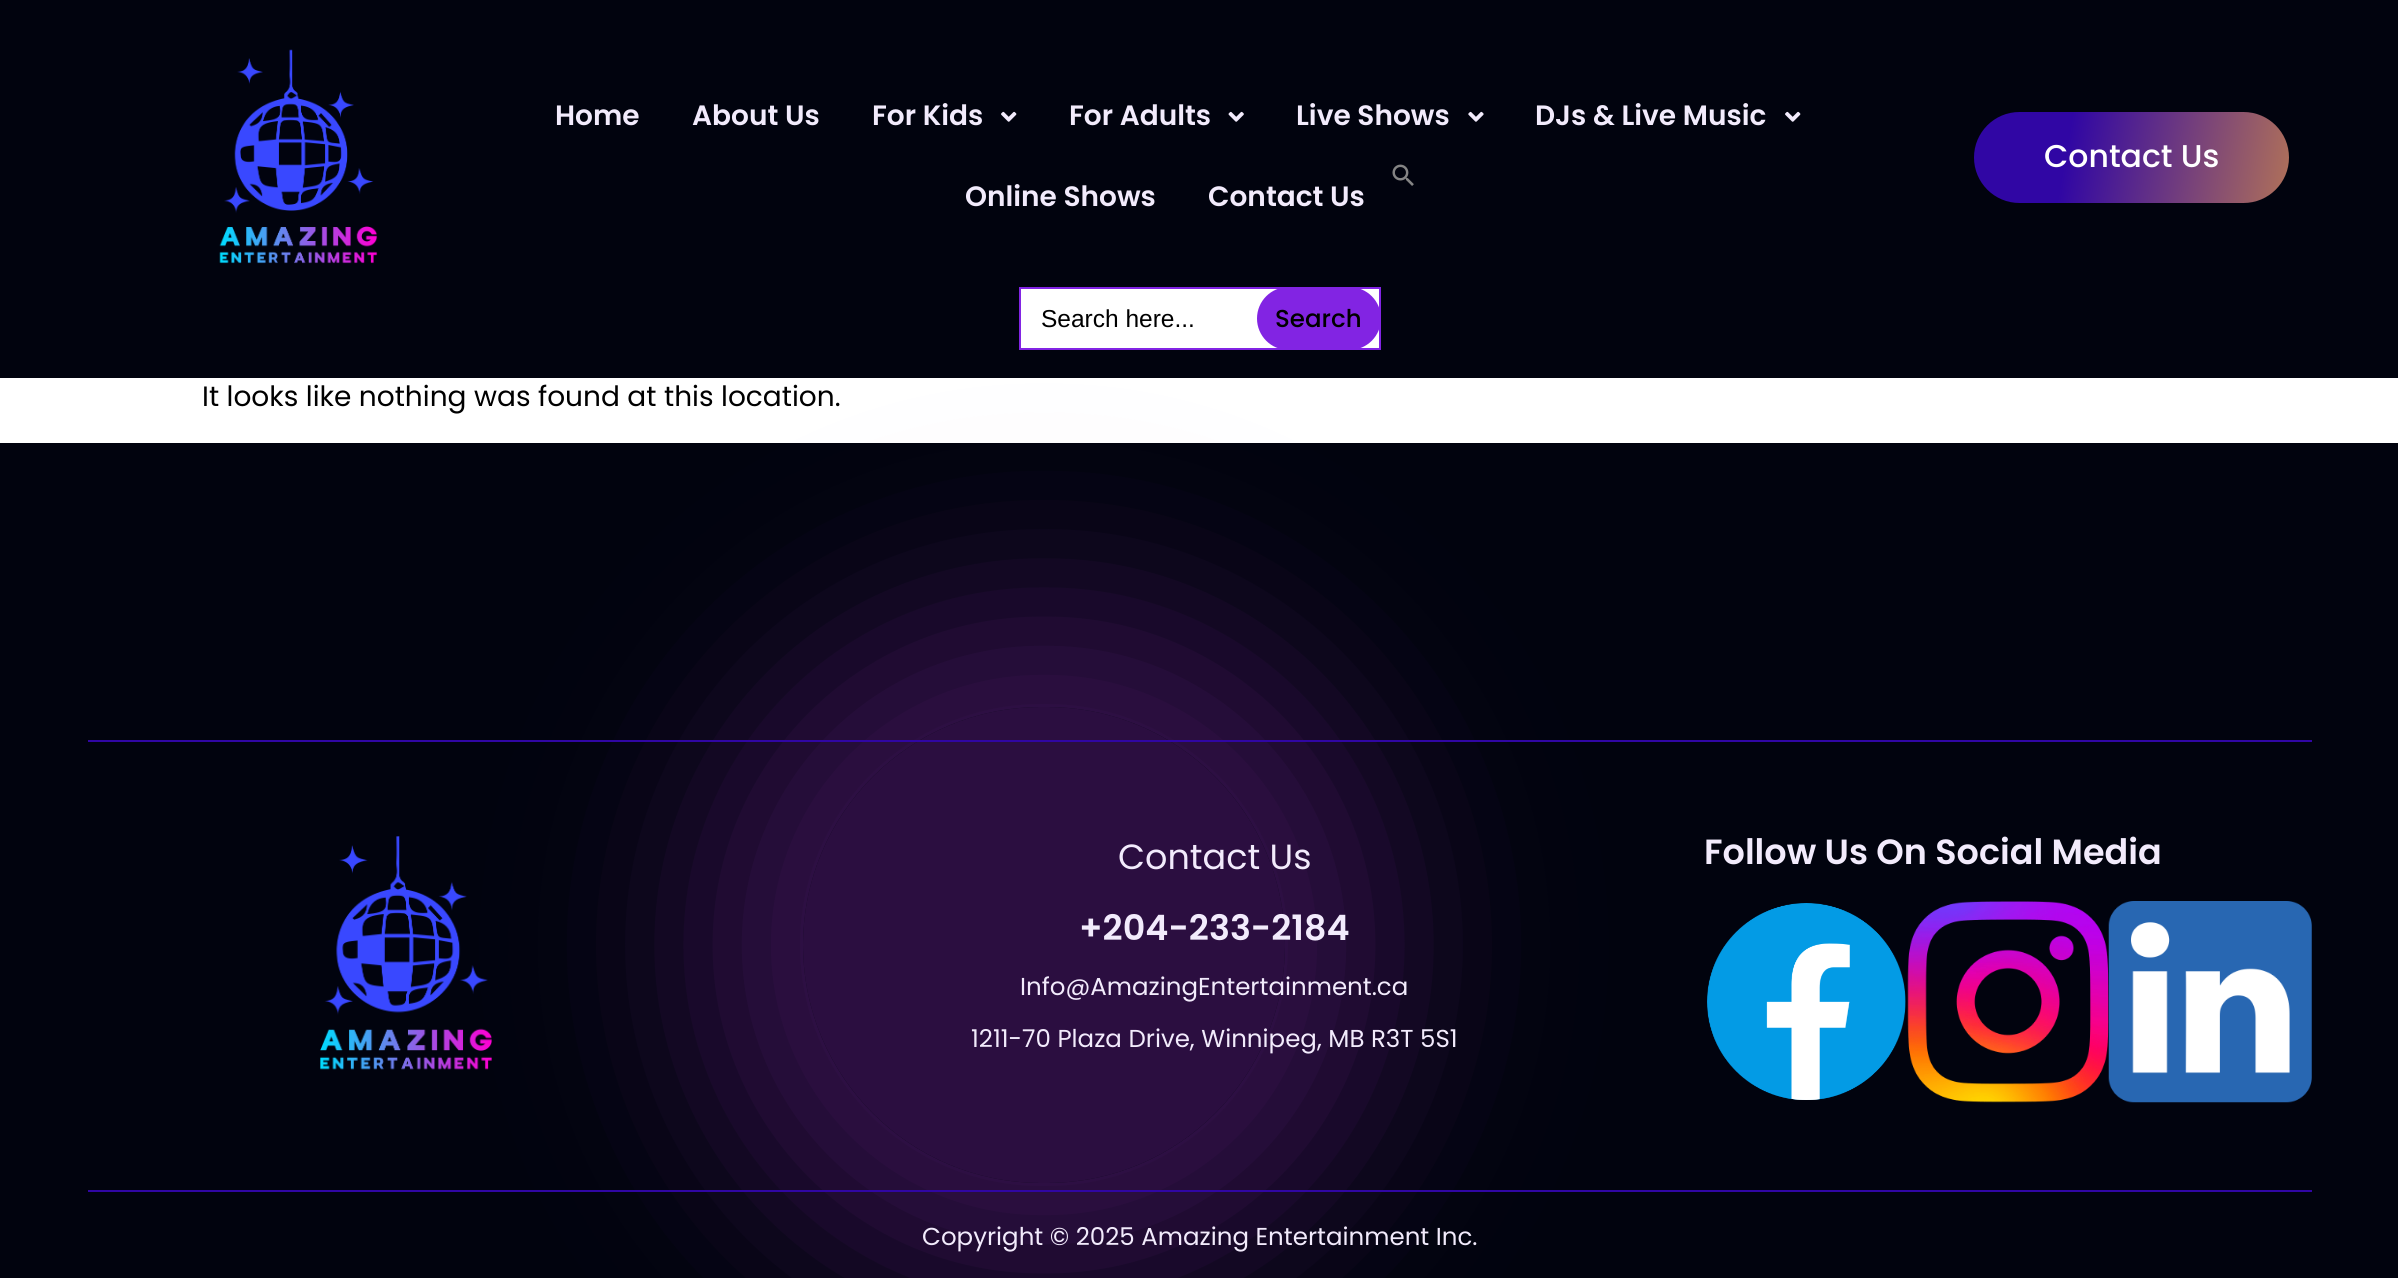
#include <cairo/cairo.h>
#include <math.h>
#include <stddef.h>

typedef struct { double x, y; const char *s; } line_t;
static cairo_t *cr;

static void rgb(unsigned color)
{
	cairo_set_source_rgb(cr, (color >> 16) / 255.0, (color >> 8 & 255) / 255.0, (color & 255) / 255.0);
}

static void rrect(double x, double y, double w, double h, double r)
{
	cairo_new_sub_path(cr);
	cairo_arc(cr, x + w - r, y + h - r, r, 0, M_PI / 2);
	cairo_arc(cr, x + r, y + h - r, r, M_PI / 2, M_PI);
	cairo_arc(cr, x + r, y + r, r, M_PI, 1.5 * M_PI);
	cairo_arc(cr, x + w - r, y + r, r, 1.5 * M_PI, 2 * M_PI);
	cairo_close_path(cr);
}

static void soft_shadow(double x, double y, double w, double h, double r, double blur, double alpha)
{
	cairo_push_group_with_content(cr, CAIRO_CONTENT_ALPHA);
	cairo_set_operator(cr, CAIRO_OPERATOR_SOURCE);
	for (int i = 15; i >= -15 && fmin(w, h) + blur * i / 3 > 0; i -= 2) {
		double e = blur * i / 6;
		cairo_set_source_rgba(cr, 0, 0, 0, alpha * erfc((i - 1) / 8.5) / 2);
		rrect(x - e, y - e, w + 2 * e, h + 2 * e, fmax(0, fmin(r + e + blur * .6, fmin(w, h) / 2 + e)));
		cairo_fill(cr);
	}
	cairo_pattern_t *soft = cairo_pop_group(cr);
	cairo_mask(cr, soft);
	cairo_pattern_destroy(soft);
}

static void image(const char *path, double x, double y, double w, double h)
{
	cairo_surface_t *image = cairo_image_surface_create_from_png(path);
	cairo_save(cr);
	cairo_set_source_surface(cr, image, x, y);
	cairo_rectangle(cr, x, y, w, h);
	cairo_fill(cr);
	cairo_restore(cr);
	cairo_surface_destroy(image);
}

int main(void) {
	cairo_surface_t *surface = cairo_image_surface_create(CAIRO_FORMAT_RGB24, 2398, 1278);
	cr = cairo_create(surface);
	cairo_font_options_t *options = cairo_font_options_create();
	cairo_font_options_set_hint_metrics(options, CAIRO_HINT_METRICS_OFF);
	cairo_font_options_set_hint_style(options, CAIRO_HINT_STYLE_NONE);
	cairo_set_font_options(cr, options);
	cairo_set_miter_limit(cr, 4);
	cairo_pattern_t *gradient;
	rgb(0xffffff);
	cairo_paint(cr);
	rgb(0x01030e);
	cairo_rectangle(cr, 0, 443, 2398, 835);
	cairo_fill(cr);
	cairo_save(cr);
	cairo_set_fill_rule(cr, CAIRO_FILL_RULE_EVEN_ODD);
	cairo_new_path(cr);
	cairo_move_to(cr, 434, 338);
	cairo_line_to(cr, 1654, 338);
	cairo_line_to(cr, 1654, 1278);
	cairo_line_to(cr, 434, 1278);
	cairo_close_path(cr);
	cairo_move_to(cr, 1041, 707);
	cairo_line_to(cr, 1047, 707);
	cairo_curve_to(cr, 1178.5, 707, 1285, 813.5, 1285, 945);
	cairo_curve_to(cr, 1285, 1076.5, 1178.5, 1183, 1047, 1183);
	cairo_line_to(cr, 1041, 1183);
	cairo_curve_to(cr, 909.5, 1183, 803, 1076.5, 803, 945);
	cairo_curve_to(cr, 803, 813.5, 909.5, 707, 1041, 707);
	cairo_close_path(cr);
	cairo_clip(cr);
	rgb(0x7a259e);
	soft_shadow(698, 602, 692, 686, 343, 87.5, 0.4);
	cairo_restore(cr);
	cairo_rectangle(cr, 0, 0, 2398, 378);
	cairo_fill(cr);
	image("img/1.png", 219, 49, 159, 215);
	image("img/2.png", 1001, 111, 16, 11);
	image("img/3.png", 1228, 111, 16, 11);
	image("img/4.png", 1468, 111, 16, 11);
	image("img/2.png", 1785, 111, 16, 11);
	image("img/5.png", 1392, 164, 22, 22);
	gradient = cairo_pattern_create_linear(1971, 129, 2292, 186);
	cairo_pattern_add_color_stop_rgba(gradient, 0.3, 0.188, 0.024, 0.643, 1);
	cairo_pattern_add_color_stop_rgba(gradient, 1, 0.69, 0.443, 0.349, 1);
	cairo_set_source(cr, gradient);
	cairo_pattern_destroy(gradient);
	rrect(1974, 112, 315, 91, 45.5);
	cairo_fill(cr);
	rgb(0xffffff);
	cairo_rectangle(cr, 1020, 288, 360, 61);
	cairo_fill_preserve(cr);
	rgb(0x8224e3);
	cairo_stroke(cr);
	rrect(1258, 288, 122, 61, 30.5);
	cairo_fill_preserve(cr);
	cairo_stroke(cr);
	cairo_set_source_rgba(cr, 0.478, 0.145, 0.62, 0.35);
	rrect(803, 707, 482, 476, 238);
	cairo_fill(cr);
	rgb(0x3006a4);
	cairo_rectangle(cr, 88, 740, 2224, 2);
	cairo_fill(cr);
	cairo_rectangle(cr, 88, 1190, 2224, 2);
	cairo_fill(cr);
	image("img/6.png", 320, 836, 172, 234);
	image("img/7.png", 1707, 903, 199, 197);
	image("img/8.png", 1907, 901, 202, 202);
	image("img/9.png", 2108, 901, 204, 202);
	cairo_select_font_face(cr, "Poppins SemiBold", CAIRO_FONT_SLANT_NORMAL, CAIRO_FONT_WEIGHT_NORMAL);
	cairo_set_font_size(cr, 28);
	rgb(0xf2ebfc);
	{
		static const line_t items[] = {
			{555, 125, "Home"},
			{692, 125, "About Us"},
			{872, 125, "For Kids"},
			{1069, 125, "For Adults"},
			{1296, 125, "Live Shows"},
			{1535, 125, "DJs & Live Music"},
			{965, 206, "Online Shows"},
			{1208, 206, "Contact Us"},
		};
		for (size_t i = 0; i < sizeof items / sizeof *items; i++) {
			cairo_move_to(cr, items[i].x, items[i].y);
			cairo_show_text(cr, items[i].s);
		}
	}
	cairo_select_font_face(cr, "Poppins Medium", CAIRO_FONT_SLANT_NORMAL, CAIRO_FONT_WEIGHT_NORMAL);
	cairo_set_font_size(cr, 31.5);
	rgb(0xffffff);
	cairo_move_to(cr, 2044, 167);
	cairo_show_text(cr, "Contact Us");
	cairo_select_font_face(cr, "Liberation Sans", CAIRO_FONT_SLANT_NORMAL, CAIRO_FONT_WEIGHT_NORMAL);
	cairo_set_font_size(cr, 24.5);
	rgb(0x000000);
	cairo_move_to(cr, 1041, 327);
	cairo_show_text(cr, "Search here...");
	cairo_select_font_face(cr, "Poppins Medium", CAIRO_FONT_SLANT_NORMAL, CAIRO_FONT_WEIGHT_NORMAL);
	cairo_move_to(cr, 1275, 327);
	cairo_show_text(cr, "Search");
	cairo_select_font_face(cr, "Poppins", CAIRO_FONT_SLANT_NORMAL, CAIRO_FONT_WEIGHT_NORMAL);
	cairo_set_font_size(cr, 28);
	cairo_move_to(cr, 202, 406);
	cairo_show_text(cr, "It looks like nothing was found at this location.");
	cairo_set_font_size(cr, 35);
	rgb(0xf2ebfc);
	cairo_move_to(cr, 1118, 869);
	cairo_show_text(cr, "Contact Us");
	cairo_select_font_face(cr, "Poppins SemiBold", CAIRO_FONT_SLANT_NORMAL, CAIRO_FONT_WEIGHT_NORMAL);
	cairo_move_to(cr, 1079, 940);
	cairo_show_text(cr, "+204-233-2184");
	cairo_select_font_face(cr, "Poppins", CAIRO_FONT_SLANT_NORMAL, CAIRO_FONT_WEIGHT_NORMAL);
	cairo_set_font_size(cr, 24.5);
	cairo_move_to(cr, 1020, 995);
	cairo_show_text(cr, "Info@AmazingEntertainment.ca");
	cairo_move_to(cr, 971, 1047);
	cairo_show_text(cr, "1211-70 Plaza Drive, Winnipeg, MB R3T 5S1");
	cairo_select_font_face(cr, "Poppins SemiBold", CAIRO_FONT_SLANT_NORMAL, CAIRO_FONT_WEIGHT_NORMAL);
	cairo_set_font_size(cr, 35);
	cairo_move_to(cr, 1704, 864);
	cairo_show_text(cr, "Follow Us On Social Media");
	cairo_select_font_face(cr, "Poppins", CAIRO_FONT_SLANT_NORMAL, CAIRO_FONT_WEIGHT_NORMAL);
	cairo_set_font_size(cr, 24.5);
	cairo_move_to(cr, 922, 1245);
	cairo_show_text(cr, "Copyright © 2025 Amazing Entertainment Inc.");
	cairo_surface_write_to_png(surface, "page.png");
	cairo_font_options_destroy(options);
	cairo_destroy(cr);
	cairo_surface_destroy(surface);
	return 0;
}
